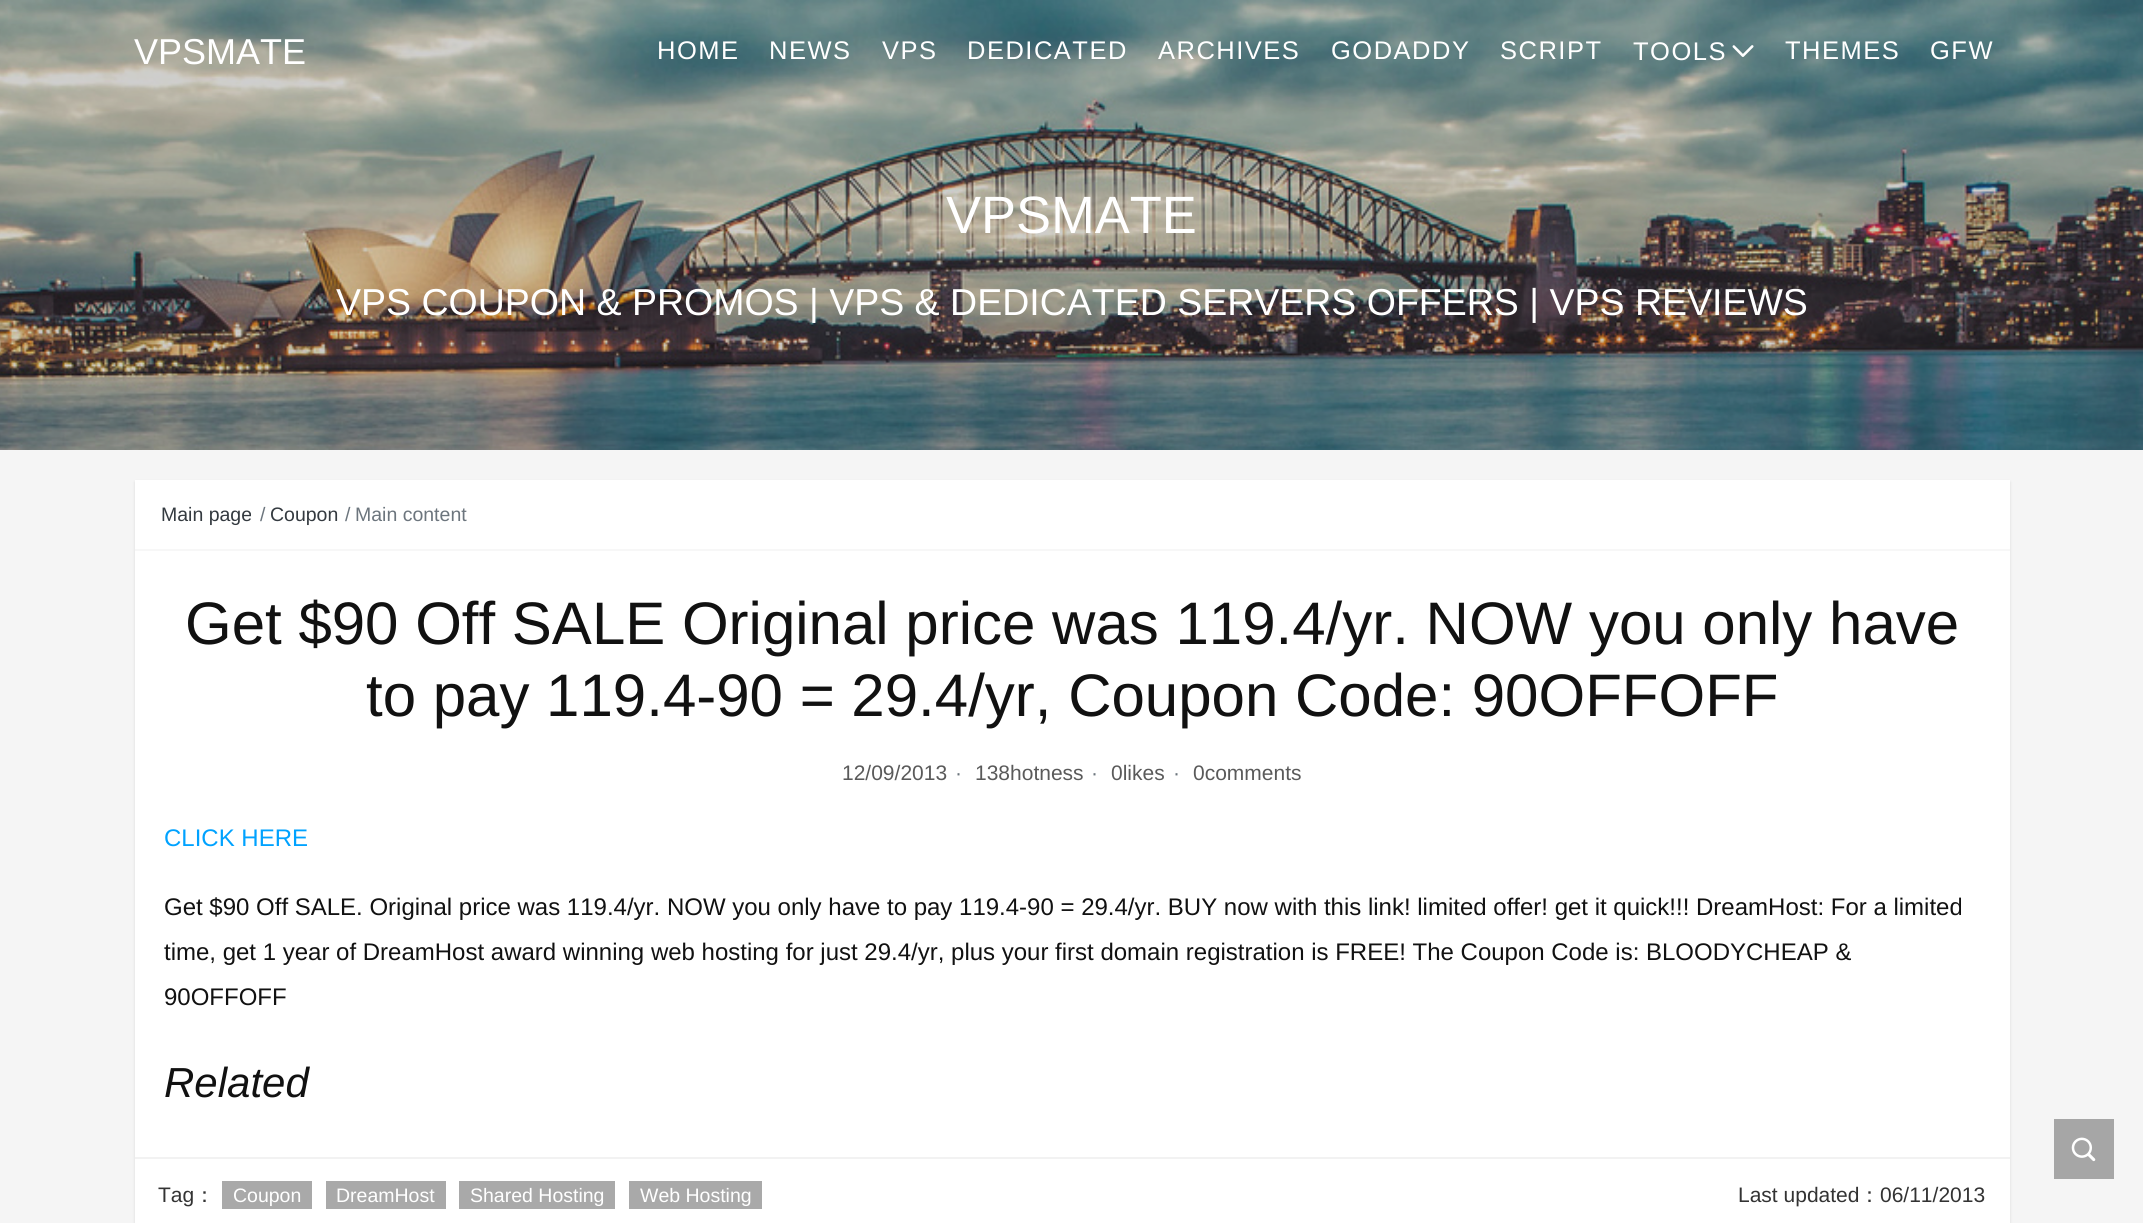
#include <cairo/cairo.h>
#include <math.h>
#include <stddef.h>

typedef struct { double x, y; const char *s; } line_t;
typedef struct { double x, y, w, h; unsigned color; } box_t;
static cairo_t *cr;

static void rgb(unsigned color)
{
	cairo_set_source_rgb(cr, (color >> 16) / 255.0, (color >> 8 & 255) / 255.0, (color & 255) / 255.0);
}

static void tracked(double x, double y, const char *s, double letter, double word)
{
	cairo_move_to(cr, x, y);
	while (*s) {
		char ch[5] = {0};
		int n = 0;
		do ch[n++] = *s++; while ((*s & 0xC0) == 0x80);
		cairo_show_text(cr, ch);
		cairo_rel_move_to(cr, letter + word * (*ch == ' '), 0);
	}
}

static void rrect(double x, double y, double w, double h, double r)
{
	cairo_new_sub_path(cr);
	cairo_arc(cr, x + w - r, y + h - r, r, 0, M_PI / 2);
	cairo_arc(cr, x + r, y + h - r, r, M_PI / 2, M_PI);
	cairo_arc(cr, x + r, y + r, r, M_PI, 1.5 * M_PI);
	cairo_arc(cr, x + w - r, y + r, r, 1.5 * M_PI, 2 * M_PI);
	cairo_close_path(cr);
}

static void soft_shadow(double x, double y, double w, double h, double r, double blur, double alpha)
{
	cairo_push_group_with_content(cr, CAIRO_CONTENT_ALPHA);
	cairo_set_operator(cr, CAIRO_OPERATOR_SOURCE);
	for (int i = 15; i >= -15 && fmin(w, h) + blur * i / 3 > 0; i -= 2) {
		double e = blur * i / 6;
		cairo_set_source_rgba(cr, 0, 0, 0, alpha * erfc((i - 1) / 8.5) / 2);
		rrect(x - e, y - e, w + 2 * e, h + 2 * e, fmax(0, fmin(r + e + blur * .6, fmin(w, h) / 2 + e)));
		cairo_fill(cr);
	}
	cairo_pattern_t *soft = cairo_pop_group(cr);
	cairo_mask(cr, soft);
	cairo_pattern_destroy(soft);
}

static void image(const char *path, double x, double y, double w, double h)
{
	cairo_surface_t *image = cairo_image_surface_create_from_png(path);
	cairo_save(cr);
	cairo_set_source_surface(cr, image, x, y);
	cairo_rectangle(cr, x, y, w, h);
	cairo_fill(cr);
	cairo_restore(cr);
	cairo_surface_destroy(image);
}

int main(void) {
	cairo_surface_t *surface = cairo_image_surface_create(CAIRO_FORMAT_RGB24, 2143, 1223);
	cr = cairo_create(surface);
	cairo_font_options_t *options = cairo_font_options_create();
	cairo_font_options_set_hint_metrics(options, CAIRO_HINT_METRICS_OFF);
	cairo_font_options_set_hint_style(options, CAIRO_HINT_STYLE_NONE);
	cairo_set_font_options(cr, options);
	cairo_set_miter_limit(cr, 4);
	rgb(0xf5f5f5);
	cairo_paint(cr);
	image("img/2.png", 0, 0, 2143, 450);
	image("img/1.png", 1732, 45, 22, 12);
	rgb(0x000000);
	soft_shadow(135, 482, 1875, 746, 0, 1.5, 0.1);
	{
		static const box_t items[] = {
			{135, 480, 1875, 743, 0xffffff},
			{135, 549, 1875, 2, 0xf7f7f7},
			{135, 1157, 1875, 2, 0xf2f2f2},
			{222, 1181, 90, 28, 0xa9a9a9},
			{326, 1181, 120, 28, 0xa9a9a9},
			{459, 1181, 156, 28, 0xa9a9a9},
			{629, 1181, 133, 28, 0xa9a9a9},
			{2054, 1119, 60, 60, 0xa6a6a6},
		};
		for (size_t i = 0; i < sizeof items / sizeof *items; i++) {
			rgb(items[i].color);
			cairo_rectangle(cr, items[i].x, items[i].y, items[i].w, items[i].h);
			cairo_fill(cr);
		}
	}
	image("img/3.png", 2071, 1137, 25, 25);
	cairo_select_font_face(cr, "Liberation Sans", CAIRO_FONT_SLANT_NORMAL, CAIRO_FONT_WEIGHT_NORMAL);
	cairo_set_font_size(cr, 36);
	rgb(0xffffff);
	cairo_move_to(cr, 134, 64);
	cairo_show_text(cr, "VPSMATE");
	cairo_set_font_size(cr, 25.5);
	{
		static const line_t items[] = {
			{657, 59, "HOME"},
			{769, 59, "NEWS"},
			{882, 59, "VPS"},
			{967, 59, "DEDICATED"},
			{1158, 59, "ARCHIVES"},
			{1331, 59, "GODADDY"},
			{1500, 59, "SCRIPT"},
			{1633, 60, "TOOLS"},
			{1785, 59, "THEMES"},
			{1930, 59, "GFW"},
		};
		for (size_t i = 0; i < sizeof items / sizeof *items; i++) {
			tracked(items[i].x, items[i].y, items[i].s, 1.5, 0);
		}
	}
	cairo_set_font_size(cr, 52.5);
	cairo_move_to(cr, 946, 233);
	cairo_show_text(cr, "VPSMATE");
	cairo_set_font_size(cr, 37.5);
	cairo_move_to(cr, 336, 315);
	cairo_show_text(cr, "VPS COUPON & PROMOS | VPS & DEDICATED SERVERS OFFERS | VPS REVIEWS");
	cairo_set_font_size(cr, 19.5);
	rgb(0x343a40);
	cairo_move_to(cr, 161, 521);
	cairo_show_text(cr, "Main page");
	rgb(0x6c757d);
	cairo_move_to(cr, 260, 521);
	cairo_show_text(cr, "/");
	rgb(0x343a40);
	cairo_move_to(cr, 270, 521);
	cairo_show_text(cr, "Coupon");
	rgb(0x6c757d);
	cairo_move_to(cr, 345, 521);
	cairo_show_text(cr, "/");
	cairo_move_to(cr, 355, 521);
	cairo_show_text(cr, "Main content");
	cairo_set_font_size(cr, 60);
	rgb(0x111111);
	cairo_move_to(cr, 185, 644);
	cairo_show_text(cr, "Get $90 Off SALE Original price was 119.4/yr. NOW you only have");
	cairo_move_to(cr, 366, 716);
	cairo_show_text(cr, "to pay 119.4-90 = 29.4/yr, Coupon Code: 90OFFOFF");
	cairo_set_font_size(cr, 21);
	rgb(0x5a5a5a);
	cairo_move_to(cr, 842, 780);
	cairo_show_text(cr, "12/09/2013");
	rgb(0x6c757d);
	cairo_move_to(cr, 955, 780);
	cairo_show_text(cr, "·");
	rgb(0x5a5a5a);
	cairo_move_to(cr, 975, 780);
	cairo_show_text(cr, "138hotness");
	rgb(0x6c757d);
	cairo_move_to(cr, 1091, 780);
	cairo_show_text(cr, "·");
	rgb(0x5a5a5a);
	cairo_move_to(cr, 1111, 780);
	cairo_show_text(cr, "0likes");
	rgb(0x6c757d);
	cairo_move_to(cr, 1173, 780);
	cairo_show_text(cr, "·");
	rgb(0x5a5a5a);
	cairo_move_to(cr, 1193, 780);
	cairo_show_text(cr, "0comments");
	cairo_set_font_size(cr, 24);
	rgb(0x00a2ff);
	cairo_move_to(cr, 164, 846);
	cairo_show_text(cr, "CLICK HERE");
	rgb(0x111111);
	{
		static const line_t items[] = {
			{164, 915, "Get $90 Off SALE. Original price was 119.4/yr. NOW you only have to pay 119.4-90 = 29.4/yr. BUY now with this link! limited offer! get it quick!!! DreamHost: For a limited"},
			{164, 960, "time, get 1 year of DreamHost award winning web hosting for just 29.4/yr, plus your first domain registration is FREE! The Coupon Code is: BLOODYCHEAP &"},
			{164, 1005, "90OFFOFF"},
		};
		for (size_t i = 0; i < sizeof items / sizeof *items; i++) {
			cairo_move_to(cr, items[i].x, items[i].y);
			cairo_show_text(cr, items[i].s);
		}
	}
	cairo_select_font_face(cr, "Liberation Sans", CAIRO_FONT_SLANT_ITALIC, CAIRO_FONT_WEIGHT_NORMAL);
	cairo_set_font_size(cr, 42);
	cairo_move_to(cr, 164, 1097);
	cairo_show_text(cr, "Related");
	cairo_select_font_face(cr, "Liberation Sans", CAIRO_FONT_SLANT_NORMAL, CAIRO_FONT_WEIGHT_NORMAL);
	cairo_set_font_size(cr, 21);
	rgb(0x333333);
	cairo_move_to(cr, 158, 1202);
	cairo_show_text(cr, "Tag");
	cairo_select_font_face(cr, "WenQuanYi Zen Hei Medium", CAIRO_FONT_SLANT_NORMAL, CAIRO_FONT_WEIGHT_NORMAL);
	cairo_move_to(cr, 194, 1202);
	cairo_show_text(cr, "：");
	cairo_select_font_face(cr, "Liberation Sans", CAIRO_FONT_SLANT_NORMAL, CAIRO_FONT_WEIGHT_NORMAL);
	cairo_set_font_size(cr, 19.5);
	rgb(0xffffff);
	{
		static const line_t items[] = {
			{233, 1202, "Coupon"},
			{336, 1202, "DreamHost"},
			{470, 1202, "Shared Hosting"},
			{640, 1202, "Web Hosting"},
		};
		for (size_t i = 0; i < sizeof items / sizeof *items; i++) {
			cairo_move_to(cr, items[i].x, items[i].y);
			cairo_show_text(cr, items[i].s);
		}
	}
	cairo_set_font_size(cr, 21);
	rgb(0x333333);
	cairo_move_to(cr, 1738, 1202);
	cairo_show_text(cr, "Last updated");
	cairo_select_font_face(cr, "WenQuanYi Zen Hei Medium", CAIRO_FONT_SLANT_NORMAL, CAIRO_FONT_WEIGHT_NORMAL);
	cairo_move_to(cr, 1859, 1202);
	cairo_show_text(cr, "：");
	cairo_select_font_face(cr, "Liberation Sans", CAIRO_FONT_SLANT_NORMAL, CAIRO_FONT_WEIGHT_NORMAL);
	cairo_move_to(cr, 1880, 1202);
	cairo_show_text(cr, "06/11/2013");
	cairo_surface_write_to_png(surface, "page.png");
	cairo_font_options_destroy(options);
	cairo_destroy(cr);
	cairo_surface_destroy(surface);
	return 0;
}
